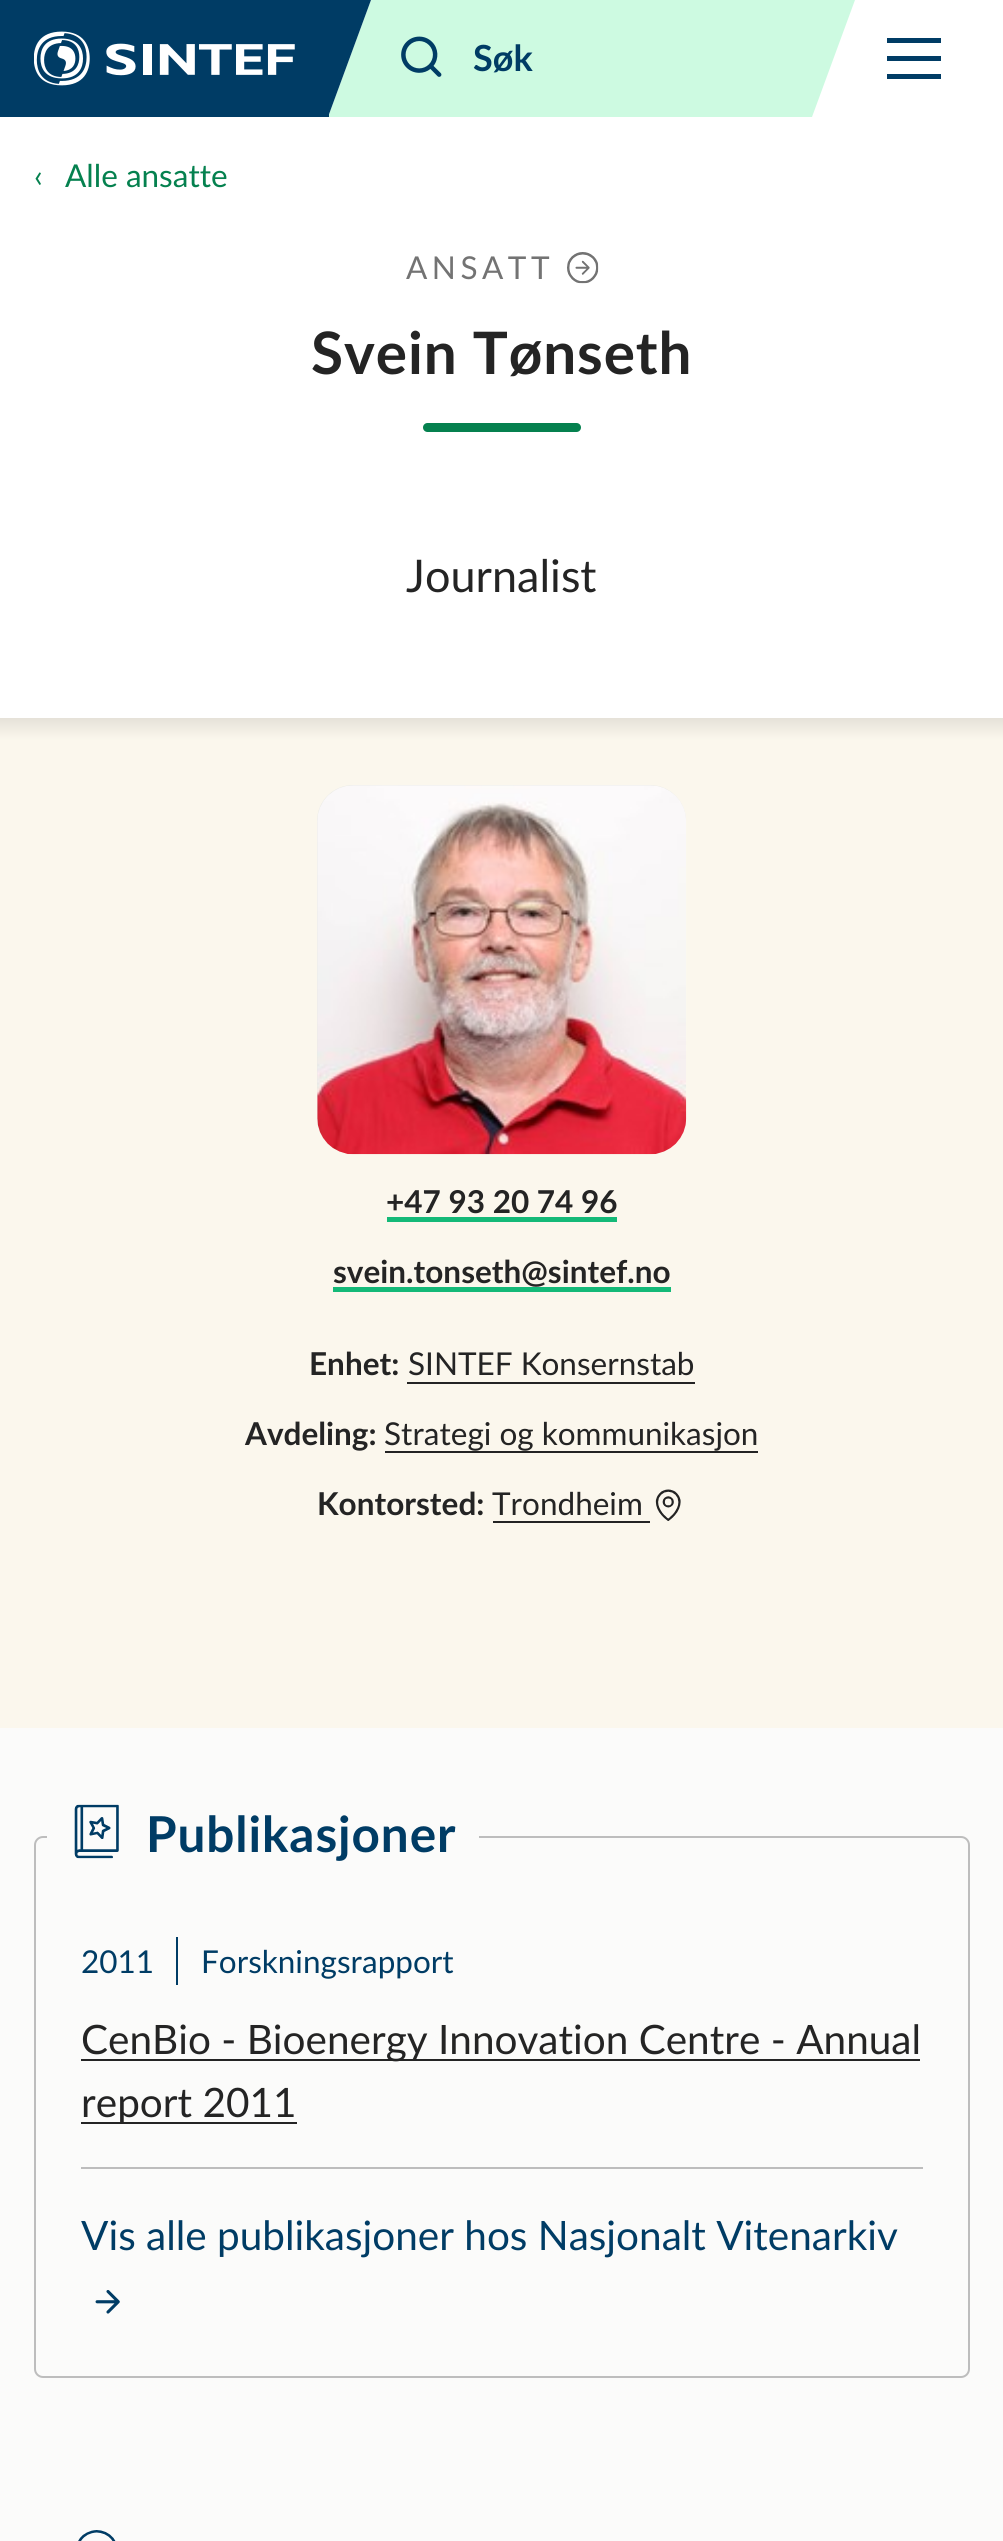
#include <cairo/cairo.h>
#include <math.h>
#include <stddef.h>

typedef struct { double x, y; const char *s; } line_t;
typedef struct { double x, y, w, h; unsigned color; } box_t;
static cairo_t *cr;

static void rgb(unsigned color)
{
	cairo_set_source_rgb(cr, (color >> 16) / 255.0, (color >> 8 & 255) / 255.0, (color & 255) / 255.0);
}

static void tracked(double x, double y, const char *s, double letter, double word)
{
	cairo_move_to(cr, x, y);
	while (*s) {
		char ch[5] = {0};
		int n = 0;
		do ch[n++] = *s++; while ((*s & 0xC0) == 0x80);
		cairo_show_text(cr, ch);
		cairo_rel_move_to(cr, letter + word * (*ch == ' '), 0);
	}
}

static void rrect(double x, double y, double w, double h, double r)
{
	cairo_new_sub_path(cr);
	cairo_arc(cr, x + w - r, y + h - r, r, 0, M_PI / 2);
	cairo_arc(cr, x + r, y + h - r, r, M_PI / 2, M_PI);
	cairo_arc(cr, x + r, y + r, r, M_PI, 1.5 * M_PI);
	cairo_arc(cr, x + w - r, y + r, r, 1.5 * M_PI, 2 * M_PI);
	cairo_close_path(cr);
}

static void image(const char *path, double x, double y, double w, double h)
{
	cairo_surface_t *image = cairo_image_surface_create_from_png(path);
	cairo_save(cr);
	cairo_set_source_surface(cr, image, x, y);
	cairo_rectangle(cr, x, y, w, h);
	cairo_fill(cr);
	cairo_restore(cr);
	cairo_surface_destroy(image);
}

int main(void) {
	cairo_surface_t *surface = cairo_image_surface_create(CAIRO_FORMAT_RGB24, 1003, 2541);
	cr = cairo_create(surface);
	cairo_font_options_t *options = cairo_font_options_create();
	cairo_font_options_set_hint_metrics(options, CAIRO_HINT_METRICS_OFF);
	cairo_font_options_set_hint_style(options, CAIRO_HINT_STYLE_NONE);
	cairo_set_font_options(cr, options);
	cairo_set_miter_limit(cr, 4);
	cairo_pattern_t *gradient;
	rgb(0xffffff);
	cairo_paint(cr);
	rgb(0xcdfae1);
	cairo_new_path(cr);
	cairo_move_to(cr, 371, 0);
	cairo_line_to(cr, 855, 0);
	cairo_line_to(cr, 812, 117);
	cairo_line_to(cr, 328, 117);
	cairo_close_path(cr);
	cairo_fill(cr);
	rgb(0x003c65);
	cairo_new_path(cr);
	cairo_move_to(cr, 43, 0);
	cairo_line_to(cr, 371, 0);
	cairo_line_to(cr, 328, 117);
	cairo_line_to(cr, 0, 117);
	cairo_close_path(cr);
	cairo_fill(cr);
	cairo_rectangle(cr, 0, 0, 329, 117);
	cairo_fill(cr);
	image("img/1.png", 34, 31, 261, 55);
	image("img/2.png", 401, 36, 41, 41);
	{
		static const box_t items[] = {
			{887, 38, 54, 5, 0x003c65},
			{887, 56, 54, 5, 0x003c65},
			{887, 74, 54, 5, 0x003c65},
		};
		for (size_t i = 0; i < sizeof items / sizeof *items; i++) {
			rgb(items[i].color);
			cairo_rectangle(cr, items[i].x, items[i].y, items[i].w, items[i].h);
			cairo_fill(cr);
		}
	}
	image("img/3.png", 567, 252, 32, 32);
	rgb(0x05814f);
	rrect(423, 423, 158, 9, 4.5);
	cairo_fill(cr);
	gradient = cairo_pattern_create_linear(502, 718, 502, 740);
	cairo_pattern_add_color_stop_rgba(gradient, 0, 0.902, 0.886, 0.851, 1);
	cairo_pattern_add_color_stop_rgba(gradient, 1, 0.984, 0.969, 0.929, 1);
	cairo_set_source(cr, gradient);
	cairo_pattern_destroy(gradient);
	cairo_rectangle(cr, 0, 718, 1003, 22);
	cairo_fill(cr);
	rgb(0xfbf7ed);
	cairo_rectangle(cr, 0, 740, 1003, 988);
	cairo_fill(cr);
	rgb(0xebebe6);
	rrect(317, 785, 369, 369, 36);
	cairo_fill(cr);
	image("img/4.png", 317, 785, 370, 370);
	{
		static const box_t items[] = {
			{387, 1217, 230, 5, 0x14b978},
			{333, 1287, 338, 5, 0x14b978},
			{407, 1382, 288, 2, 0x242424},
			{385, 1451, 373, 2, 0x242424},
			{493, 1521, 157, 2, 0x242424},
		};
		for (size_t i = 0; i < sizeof items / sizeof *items; i++) {
			rgb(items[i].color);
			cairo_rectangle(cr, items[i].x, items[i].y, items[i].w, items[i].h);
			cairo_fill(cr);
		}
	}
	image("img/5.png", 655, 1489, 26, 32);
	rgb(0xfbfbfa);
	cairo_rectangle(cr, 0, 1728, 1003, 813);
	cairo_fill(cr);
	rrect(35, 1837, 934, 540, 8);
	rgb(0xbdbdbd);
	cairo_stroke(cr);
	rgb(0xfbfbfa);
	cairo_rectangle(cr, 47, 1836, 432, 2);
	cairo_fill(cr);
	image("img/6.png", 74, 1804, 45, 55);
	{
		static const box_t items[] = {
			{81, 2167, 842, 2, 0xbdbdbd},
			{176, 1937, 2, 48, 0x003c65},
			{81, 2059, 839, 2, 0x242424},
			{81, 2122, 216, 2, 0x242424},
		};
		for (size_t i = 0; i < sizeof items / sizeof *items; i++) {
			rgb(items[i].color);
			cairo_rectangle(cr, items[i].x, items[i].y, items[i].w, items[i].h);
			cairo_fill(cr);
		}
	}
	image("img/7.png", 95, 2290, 25, 24);
	image("img/8.png", 78, 2530, 38, 11);
	cairo_select_font_face(cr, "Lato", CAIRO_FONT_SLANT_NORMAL, CAIRO_FONT_WEIGHT_BOLD);
	cairo_set_font_size(cr, 36);
	rgb(0x003c65);
	cairo_move_to(cr, 473, 71);
	cairo_show_text(cr, "Søk");
	cairo_select_font_face(cr, "Lato", CAIRO_FONT_SLANT_NORMAL, CAIRO_FONT_WEIGHT_NORMAL);
	cairo_set_font_size(cr, 31.5);
	rgb(0x05814f);
	cairo_move_to(cr, 34, 187);
	cairo_show_text(cr, "‹");
	cairo_move_to(cr, 65, 187);
	cairo_show_text(cr, "Alle ansatte");
	rgb(0x737373);
	tracked(406, 279, "ANSATT", 4.5, 0);
	cairo_select_font_face(cr, "Lato", CAIRO_FONT_SLANT_NORMAL, CAIRO_FONT_WEIGHT_BOLD);
	cairo_set_font_size(cr, 58.5);
	rgb(0x242424);
	tracked(311, 374, "Svein Tønseth", 0.9, 0);
	cairo_select_font_face(cr, "Lato", CAIRO_FONT_SLANT_NORMAL, CAIRO_FONT_WEIGHT_NORMAL);
	cairo_set_font_size(cr, 45);
	cairo_move_to(cr, 406, 592);
	cairo_show_text(cr, "Journalist");
	cairo_select_font_face(cr, "Lato", CAIRO_FONT_SLANT_NORMAL, CAIRO_FONT_WEIGHT_BOLD);
	cairo_set_font_size(cr, 31.5);
	{
		static const line_t items[] = {
			{386, 1213, "+47 93 20 74 96"},
			{333, 1283, "svein.tonseth@sintef.no"},
			{309, 1375, "Enhet:"},
		};
		for (size_t i = 0; i < sizeof items / sizeof *items; i++) {
			cairo_move_to(cr, items[i].x, items[i].y);
			cairo_show_text(cr, items[i].s);
		}
	}
	cairo_select_font_face(cr, "Lato", CAIRO_FONT_SLANT_NORMAL, CAIRO_FONT_WEIGHT_NORMAL);
	cairo_move_to(cr, 408, 1375);
	cairo_show_text(cr, "SINTEF Konsernstab");
	cairo_select_font_face(cr, "Lato", CAIRO_FONT_SLANT_NORMAL, CAIRO_FONT_WEIGHT_BOLD);
	cairo_move_to(cr, 245, 1445);
	cairo_show_text(cr, "Avdeling:");
	cairo_select_font_face(cr, "Lato", CAIRO_FONT_SLANT_NORMAL, CAIRO_FONT_WEIGHT_NORMAL);
	cairo_move_to(cr, 384, 1445);
	cairo_show_text(cr, "Strategi og kommunikasjon");
	cairo_select_font_face(cr, "Lato", CAIRO_FONT_SLANT_NORMAL, CAIRO_FONT_WEIGHT_BOLD);
	cairo_move_to(cr, 317, 1515);
	cairo_show_text(cr, "Kontorsted:");
	cairo_select_font_face(cr, "Lato", CAIRO_FONT_SLANT_NORMAL, CAIRO_FONT_WEIGHT_NORMAL);
	cairo_move_to(cr, 492, 1515);
	cairo_show_text(cr, "Trondheim");
	cairo_select_font_face(cr, "Lato", CAIRO_FONT_SLANT_NORMAL, CAIRO_FONT_WEIGHT_BOLD);
	cairo_set_font_size(cr, 49.5);
	rgb(0x003c65);
	tracked(146, 1852, "Publikasjoner", 0.9, 0);
	cairo_select_font_face(cr, "Lato", CAIRO_FONT_SLANT_NORMAL, CAIRO_FONT_WEIGHT_NORMAL);
	cairo_set_font_size(cr, 31.5);
	cairo_move_to(cr, 81, 1973);
	cairo_show_text(cr, "2011");
	cairo_move_to(cr, 201, 1973);
	cairo_show_text(cr, "Forskningsrapport");
	cairo_set_font_size(cr, 40.5);
	rgb(0x242424);
	cairo_move_to(cr, 81, 2054);
	cairo_show_text(cr, "CenBio - Bioenergy Innovation Centre - Annual");
	cairo_move_to(cr, 81, 2117);
	cairo_show_text(cr, "report 2011");
	rgb(0x003c65);
	cairo_move_to(cr, 81, 2250);
	cairo_show_text(cr, "Vis alle publikasjoner hos Nasjonalt Vitenarkiv");
	cairo_surface_write_to_png(surface, "page.png");
	cairo_font_options_destroy(options);
	cairo_destroy(cr);
	cairo_surface_destroy(surface);
	return 0;
}
